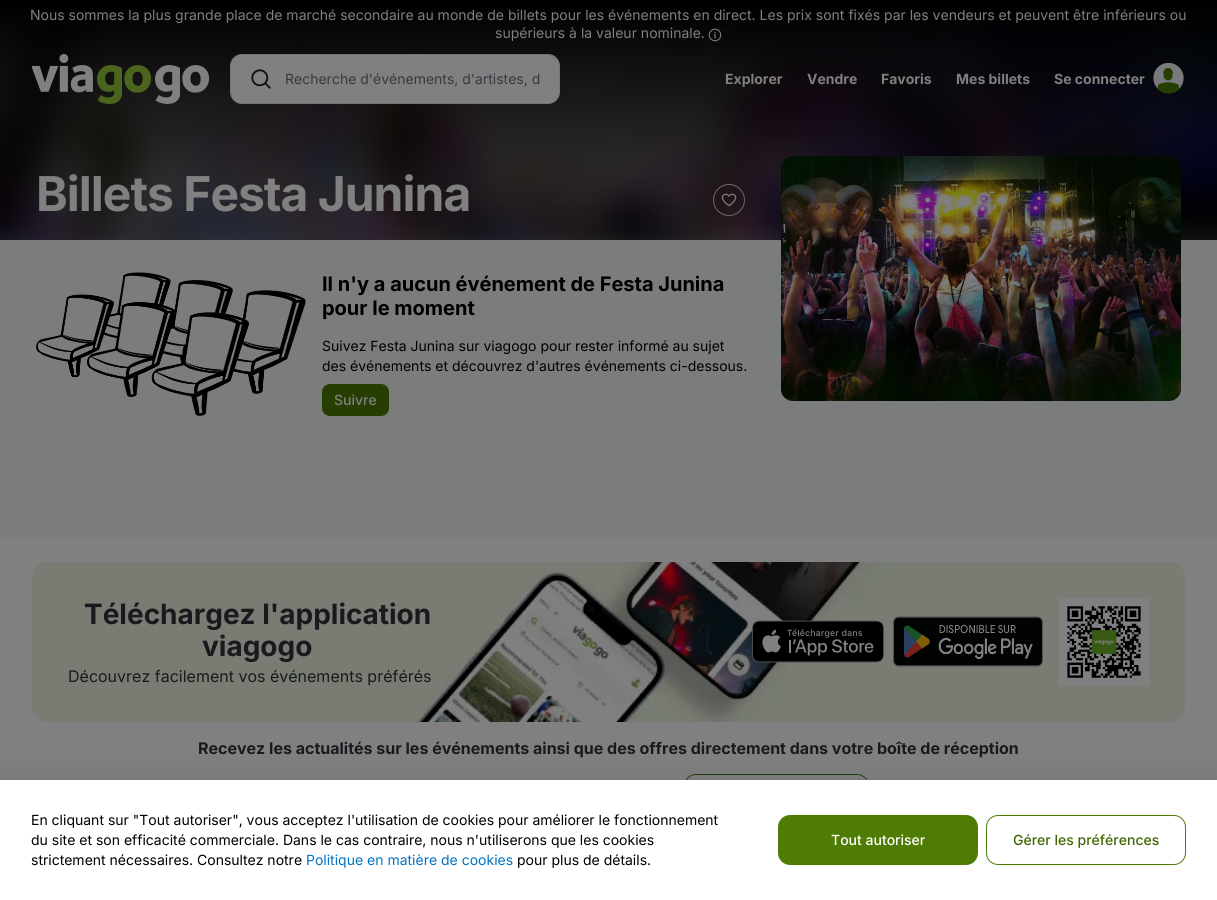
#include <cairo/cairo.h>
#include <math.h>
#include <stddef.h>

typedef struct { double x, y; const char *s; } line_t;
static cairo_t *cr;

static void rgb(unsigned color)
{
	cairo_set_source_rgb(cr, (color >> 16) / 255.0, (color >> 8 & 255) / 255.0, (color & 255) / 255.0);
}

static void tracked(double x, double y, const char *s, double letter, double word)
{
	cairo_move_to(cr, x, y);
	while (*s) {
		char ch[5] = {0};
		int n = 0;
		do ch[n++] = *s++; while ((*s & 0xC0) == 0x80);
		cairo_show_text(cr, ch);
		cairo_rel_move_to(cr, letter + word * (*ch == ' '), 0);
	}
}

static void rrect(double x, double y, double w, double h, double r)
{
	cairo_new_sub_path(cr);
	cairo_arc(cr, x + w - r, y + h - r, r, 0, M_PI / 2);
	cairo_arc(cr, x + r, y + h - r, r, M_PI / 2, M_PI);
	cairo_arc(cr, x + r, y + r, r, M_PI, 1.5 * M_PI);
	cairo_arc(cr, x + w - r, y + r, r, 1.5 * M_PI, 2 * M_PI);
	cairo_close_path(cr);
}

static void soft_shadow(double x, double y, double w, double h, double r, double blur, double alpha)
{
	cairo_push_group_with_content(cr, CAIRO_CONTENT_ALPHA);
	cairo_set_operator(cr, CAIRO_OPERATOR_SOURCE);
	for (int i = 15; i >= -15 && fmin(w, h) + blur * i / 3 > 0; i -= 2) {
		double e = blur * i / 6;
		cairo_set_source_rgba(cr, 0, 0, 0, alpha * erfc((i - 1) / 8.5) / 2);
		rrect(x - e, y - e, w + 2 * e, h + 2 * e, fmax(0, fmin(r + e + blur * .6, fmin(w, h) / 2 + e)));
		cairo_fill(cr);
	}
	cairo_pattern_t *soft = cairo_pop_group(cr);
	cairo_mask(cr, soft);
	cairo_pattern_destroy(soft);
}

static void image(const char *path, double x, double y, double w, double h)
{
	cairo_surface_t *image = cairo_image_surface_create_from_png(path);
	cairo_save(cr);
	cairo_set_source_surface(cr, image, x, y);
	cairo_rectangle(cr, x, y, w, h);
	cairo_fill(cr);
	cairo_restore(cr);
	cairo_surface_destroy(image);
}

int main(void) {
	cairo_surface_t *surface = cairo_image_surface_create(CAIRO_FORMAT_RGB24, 1217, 900);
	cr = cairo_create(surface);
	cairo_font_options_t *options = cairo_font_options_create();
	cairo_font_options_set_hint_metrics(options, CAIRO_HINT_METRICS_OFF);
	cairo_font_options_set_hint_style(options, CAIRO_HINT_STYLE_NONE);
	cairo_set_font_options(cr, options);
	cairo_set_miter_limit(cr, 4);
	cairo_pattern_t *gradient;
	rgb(0x808080);
	cairo_paint(cr);
	image("img/1.png", 0, 3, 1217, 237);
	gradient = cairo_pattern_create_linear(609, 240, 609, 0);
	cairo_pattern_add_color_stop_rgba(gradient, 0, 0, 0, 0, 0.5);
	cairo_pattern_add_color_stop_rgba(gradient, 1, 0, 0, 0, 1);
	cairo_set_source(cr, gradient);
	cairo_pattern_destroy(gradient);
	cairo_rectangle(cr, 0, 0, 1217, 240);
	cairo_fill(cr);
	image("img/2.png", 708, 28, 14, 14);
	image("img/3.png", 32, 54, 61, 39);
	image("img/4.png", 97, 65, 55, 39);
	image("img/5.png", 155, 65, 55, 39);
	rgb(0x808080);
	rrect(230.5, 54.5, 329, 49, 11.5);
	cairo_fill_preserve(cr);
	rgb(0x737576);
	cairo_set_line_width(cr, 1);
	cairo_stroke(cr);
	image("img/6.png", 251, 69, 20, 20);
	image("img/7.png", 1153, 63, 31, 31);
	cairo_arc(cr, 729, 200, 15.5, 0, 2 * M_PI);
	rgb(0x686a6d);
	cairo_stroke(cr);
	image("img/8.png", 721, 193, 16, 14);
	rgb(0x7b7c7c);
	cairo_rectangle(cr, 0, 240, 1217, 298);
	cairo_fill(cr);
	image("img/9.png", 36, 272, 270, 144);
	rgb(0x273e03);
	rrect(322, 384, 67, 32, 8);
	cairo_fill(cr);
	image("img/10.png", 781, 156, 400, 245);
	image("img/11.png", 32, 562, 1153, 160);
	image("img/12.png", 752, 620, 132, 43);
	image("img/13.png", 893, 616, 150, 51);
	rgb(0x808080);
	cairo_rectangle(cr, 1059, 598, 90, 88);
	cairo_fill(cr);
	image("img/14.png", 1067, 606, 74, 72);
	rrect(684.5, 774.5, 184, 49, 11.5);
	rgb(0x273e03);
	cairo_stroke(cr);
	rgb(0x2f343b);
	soft_shadow(0, 780, 1217, 120, 0, 16, 0.14);
	rgb(0xffffff);
	cairo_rectangle(cr, 0, 780, 1217, 120);
	cairo_fill(cr);
	rgb(0x4e7c05);
	rrect(778, 815, 200, 50, 12);
	cairo_fill(cr);
	rrect(986.5, 815.5, 199, 49, 11.5);
	cairo_stroke(cr);
	cairo_select_font_face(cr, "Inter", CAIRO_FONT_SLANT_NORMAL, CAIRO_FONT_WEIGHT_NORMAL);
	cairo_set_font_size(cr, 14);
	rgb(0x808080);
	cairo_move_to(cr, 30, 20);
	cairo_show_text(cr, "Nous sommes la plus grande place de marché secondaire au monde de billets pour les événements en direct. Les prix sont fixés par les vendeurs et peuvent être inférieurs ou");
	cairo_move_to(cr, 495, 38);
	cairo_show_text(cr, "supérieurs à la valeur nominale.");
	rgb(0x343a42);
	cairo_move_to(cr, 285, 84);
	cairo_show_text(cr, "Recherche d'événements, d'artistes, d");
	cairo_select_font_face(cr, "Inter", CAIRO_FONT_SLANT_NORMAL, CAIRO_FONT_WEIGHT_BOLD);
	rgb(0x808080);
	{
		static const line_t items[] = {
			{725, 84, "Explorer"},
			{807, 84, "Vendre"},
			{881, 84, "Favoris"},
			{956, 84, "Mes billets"},
			{1054, 84, "Se connecter"},
		};
		for (size_t i = 0; i < sizeof items / sizeof *items; i++) {
			cairo_move_to(cr, items[i].x, items[i].y);
			cairo_show_text(cr, items[i].s);
		}
	}
	cairo_set_font_size(cr, 48);
	tracked(36, 211, "Billets Festa Junina", -1, 0);
	cairo_set_font_size(cr, 20);
	rgb(0x000000);
	cairo_move_to(cr, 322, 291);
	cairo_show_text(cr, "Il n'y a aucun événement de Festa Junina");
	cairo_move_to(cr, 322, 315);
	cairo_show_text(cr, "pour le moment");
	cairo_select_font_face(cr, "Inter", CAIRO_FONT_SLANT_NORMAL, CAIRO_FONT_WEIGHT_NORMAL);
	cairo_set_font_size(cr, 14);
	cairo_move_to(cr, 322, 351);
	cairo_show_text(cr, "Suivez Festa Junina sur viagogo pour rester informé au sujet");
	cairo_move_to(cr, 322, 371);
	cairo_show_text(cr, "des événements et découvrez d'autres événements ci-dessous.");
	cairo_select_font_face(cr, "Inter Medium", CAIRO_FONT_SLANT_NORMAL, CAIRO_FONT_WEIGHT_NORMAL);
	rgb(0x808080);
	cairo_move_to(cr, 334, 405);
	cairo_show_text(cr, "Suivre");
	cairo_select_font_face(cr, "Inter", CAIRO_FONT_SLANT_NORMAL, CAIRO_FONT_WEIGHT_BOLD);
	cairo_set_font_size(cr, 28);
	rgb(0x181a1e);
	cairo_move_to(cr, 84, 624);
	cairo_show_text(cr, "Téléchargez l'application");
	cairo_move_to(cr, 202, 656);
	cairo_show_text(cr, "viagogo");
	cairo_select_font_face(cr, "Inter", CAIRO_FONT_SLANT_NORMAL, CAIRO_FONT_WEIGHT_NORMAL);
	cairo_set_font_size(cr, 16);
	cairo_move_to(cr, 68, 682);
	cairo_show_text(cr, "Découvrez facilement vos événements préférés");
	cairo_select_font_face(cr, "Inter", CAIRO_FONT_SLANT_NORMAL, CAIRO_FONT_WEIGHT_BOLD);
	cairo_move_to(cr, 198, 754);
	cairo_show_text(cr, "Recevez les actualités sur les événements ainsi que des offres directement dans votre boîte de réception");
	cairo_select_font_face(cr, "Inter", CAIRO_FONT_SLANT_NORMAL, CAIRO_FONT_WEIGHT_NORMAL);
	cairo_set_font_size(cr, 14);
	rgb(0x000000);
	{
		static const line_t items[] = {
			{31, 825, "En cliquant sur \"Tout autoriser\", vous acceptez l'utilisation de cookies pour améliorer le fonctionnement"},
			{31, 845, "du site et son efficacité commerciale. Dans le cas contraire, nous n'utiliserons que les cookies"},
			{31, 865, "strictement nécessaires. Consultez notre"},
		};
		for (size_t i = 0; i < sizeof items / sizeof *items; i++) {
			cairo_move_to(cr, items[i].x, items[i].y);
			cairo_show_text(cr, items[i].s);
		}
	}
	rgb(0x0075c4);
	cairo_move_to(cr, 306, 865);
	cairo_show_text(cr, "Politique en matière de cookies");
	rgb(0x000000);
	cairo_move_to(cr, 517, 865);
	cairo_show_text(cr, "pour plus de détails.");
	cairo_select_font_face(cr, "Inter Medium", CAIRO_FONT_SLANT_NORMAL, CAIRO_FONT_WEIGHT_NORMAL);
	rgb(0xffffff);
	cairo_move_to(cr, 831, 845);
	cairo_show_text(cr, "Tout autoriser");
	rgb(0x3f6600);
	cairo_move_to(cr, 1013, 845);
	cairo_show_text(cr, "Gérer les préférences");
	cairo_surface_write_to_png(surface, "page.png");
	cairo_font_options_destroy(options);
	cairo_destroy(cr);
	cairo_surface_destroy(surface);
	return 0;
}
